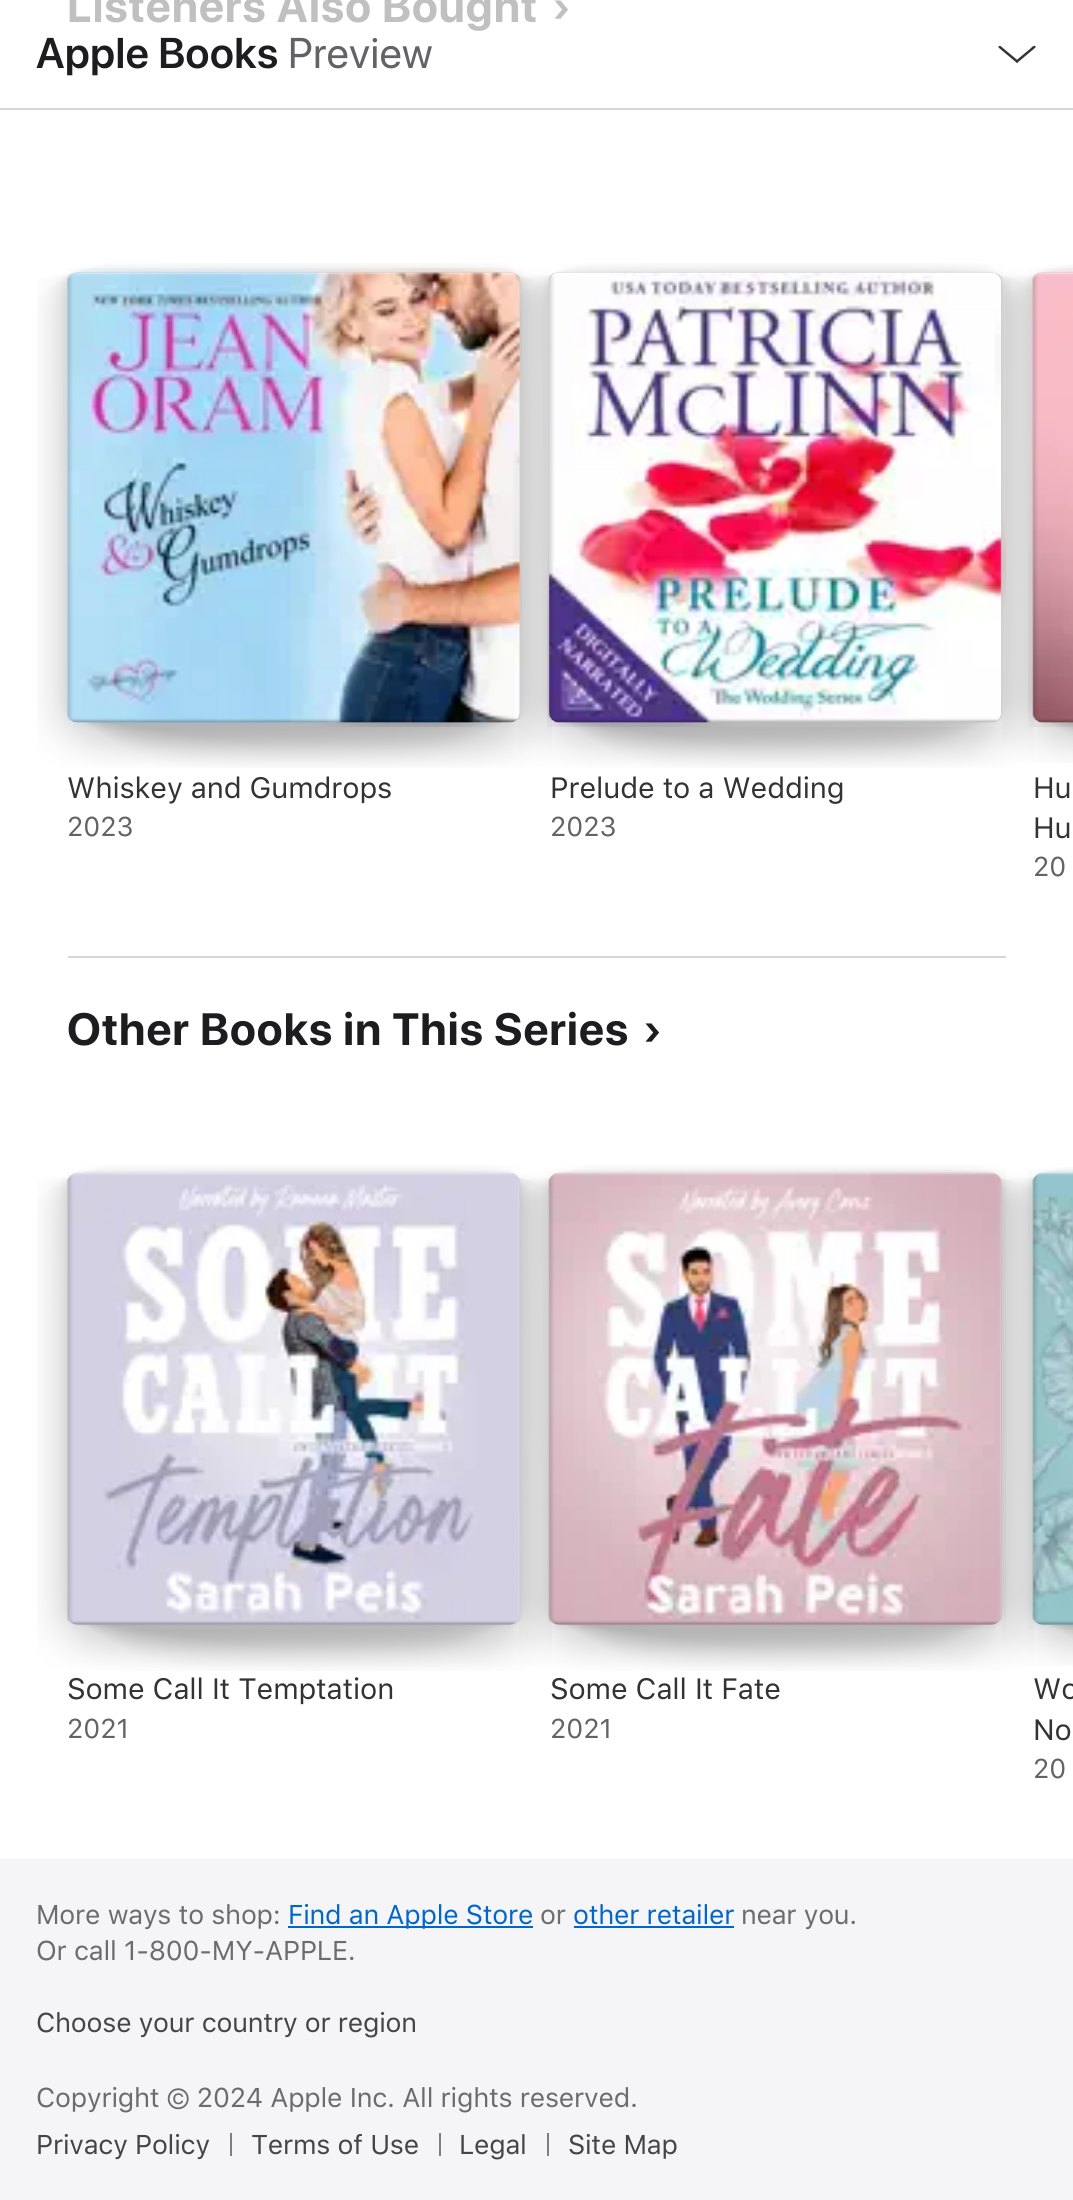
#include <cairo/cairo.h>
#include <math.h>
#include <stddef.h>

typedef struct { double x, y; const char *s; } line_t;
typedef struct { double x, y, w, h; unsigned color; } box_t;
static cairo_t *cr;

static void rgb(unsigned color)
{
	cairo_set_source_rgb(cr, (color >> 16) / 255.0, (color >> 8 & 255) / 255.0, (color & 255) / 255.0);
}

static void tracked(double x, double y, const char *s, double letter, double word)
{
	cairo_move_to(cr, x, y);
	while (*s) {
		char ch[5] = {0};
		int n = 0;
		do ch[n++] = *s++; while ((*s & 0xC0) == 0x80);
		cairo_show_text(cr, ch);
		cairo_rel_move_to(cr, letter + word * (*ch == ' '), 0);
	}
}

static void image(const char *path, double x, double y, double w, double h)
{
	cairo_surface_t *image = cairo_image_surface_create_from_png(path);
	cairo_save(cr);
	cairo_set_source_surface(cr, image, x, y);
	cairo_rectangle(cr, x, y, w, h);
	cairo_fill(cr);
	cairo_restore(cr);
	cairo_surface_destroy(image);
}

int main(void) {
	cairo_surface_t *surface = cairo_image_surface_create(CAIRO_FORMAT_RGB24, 1073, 2200);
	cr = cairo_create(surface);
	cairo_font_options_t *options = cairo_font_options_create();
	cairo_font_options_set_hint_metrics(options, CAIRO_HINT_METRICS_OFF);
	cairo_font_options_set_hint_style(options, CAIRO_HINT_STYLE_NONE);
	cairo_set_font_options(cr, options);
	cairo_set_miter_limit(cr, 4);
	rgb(0xf5f5f7);
	cairo_paint(cr);
	rgb(0xffffff);
	cairo_rectangle(cr, 0, 110, 1073, 1749);
	cairo_fill(cr);
	cairo_rectangle(cr, 0, 0, 1073, 108);
	cairo_fill(cr);
	image("img/1.png", 37, 263, 515, 505);
	image("img/2.png", 63, 268, 459, 459);
	image("img/3.png", 67, 272, 453, 451);
	image("img/4.png", 67, 272, 453, 451);
	image("img/5.png", 519, 263, 515, 505);
	image("img/6.png", 547, 272, 459, 455);
	image("img/7.png", 549, 272, 453, 451);
	image("img/8.png", 549, 273, 452, 450);
	image("img/9.png", 1002, 264, 71, 499);
	image("img/10.png", 1028, 268, 45, 459);
	image("img/11.png", 1032, 272, 41, 451);
	image("img/12.png", 1033, 272, 40, 451);
	rgb(0xd6d6d6);
	cairo_rectangle(cr, 68, 956, 938, 2);
	cairo_fill(cr);
	image("img/13.png", 37, 1165, 515, 506);
	image("img/14.png", 67, 1170, 445, 459);
	image("img/15.png", 67, 1172, 453, 453);
	image("img/16.png", 67, 1173, 453, 452);
	image("img/17.png", 519, 1165, 515, 506);
	image("img/18.png", 547, 1170, 459, 459);
	image("img/19.png", 549, 1172, 452, 453);
	image("img/20.png", 549, 1173, 452, 452);
	image("img/21.png", 1002, 1167, 71, 499);
	image("img/22.png", 1028, 1170, 45, 459);
	image("img/23.png", 1033, 1172, 40, 453);
	image("img/24.png", 1033, 1172, 40, 453);
	rgb(0x333333);
	cairo_new_path(cr);
	cairo_move_to(cr, 1000.5, 46);
	cairo_line_to(cr, 1018.5, 61);
	cairo_line_to(cr, 1017, 63);
	cairo_line_to(cr, 1002, 50.5);
	cairo_curve_to(cr, 1002, 50, 996.5, 47, 999, 46);
	cairo_close_path(cr);
	cairo_fill(cr);
	cairo_new_path(cr);
	cairo_move_to(cr, 1015.5, 61);
	cairo_line_to(cr, 1030.5, 48.5);
	cairo_curve_to(cr, 1030.5, 48.5, 1034.5, 44, 1035.5, 46.5);
	cairo_line_to(cr, 1035.5, 47.5);
	cairo_line_to(cr, 1017, 63);
	cairo_close_path(cr);
	cairo_fill(cr);
	{
		static const box_t items[] = {
			{0, 108, 1073, 2, 0xd6d6d6},
			{288, 1926, 245, 2, 0x0066cc},
			{574, 1926, 160, 2, 0x0066cc},
			{230, 2133, 2, 23, 0x7f7f80},
			{439, 2133, 2, 23, 0x7f7f80},
			{547, 2133, 2, 23, 0x7f7f80},
		};
		for (size_t i = 0; i < sizeof items / sizeof *items; i++) {
			rgb(items[i].color);
			cairo_rectangle(cr, items[i].x, items[i].y, items[i].w, items[i].h);
			cairo_fill(cr);
		}
	}
	cairo_select_font_face(cr, "SF Pro Display", CAIRO_FONT_SLANT_NORMAL, CAIRO_FONT_WEIGHT_BOLD);
	cairo_set_font_size(cr, 45);
	rgb(0xc0c0c0);
	tracked(67, 22, "Listeners Also Bought", 1.1, 0);
	tracked(552, 22, "›", 1.1, 0);
	cairo_select_font_face(cr, "SF Pro Text", CAIRO_FONT_SLANT_NORMAL, CAIRO_FONT_WEIGHT_NORMAL);
	cairo_set_font_size(cr, 29.25);
	rgb(0x333333);
	tracked(67, 798, "Whiskey and Gumdrops", -0.15, 0);
	cairo_set_font_size(cr, 27);
	rgb(0x636366);
	cairo_move_to(cr, 67, 836);
	cairo_show_text(cr, "2023");
	cairo_set_font_size(cr, 29.25);
	rgb(0x333333);
	tracked(550, 798, "Prelude to a Wedding", -0.15, 0);
	cairo_set_font_size(cr, 27);
	rgb(0x636366);
	cairo_move_to(cr, 550, 836);
	cairo_show_text(cr, "2023");
	cairo_set_font_size(cr, 29.25);
	rgb(0x333333);
	tracked(1033, 798, "Hu", -0.15, 0);
	tracked(1033, 838, "Hu", -0.15, 0);
	cairo_set_font_size(cr, 27);
	rgb(0x636366);
	cairo_move_to(cr, 1033, 876);
	cairo_show_text(cr, "20");
	cairo_select_font_face(cr, "SF Pro Display", CAIRO_FONT_SLANT_NORMAL, CAIRO_FONT_WEIGHT_BOLD);
	cairo_set_font_size(cr, 45);
	rgb(0x1d1d1f);
	tracked(67, 1045, "Other Books in This Series", 1.1, 0);
	tracked(643, 1045, "›", 1.1, 0);
	cairo_select_font_face(cr, "SF Pro Text", CAIRO_FONT_SLANT_NORMAL, CAIRO_FONT_WEIGHT_NORMAL);
	cairo_set_font_size(cr, 29.25);
	rgb(0x333333);
	tracked(67, 1699, "Some Call It Temptation", -0.15, 0);
	cairo_set_font_size(cr, 27);
	rgb(0x636366);
	cairo_move_to(cr, 67, 1738);
	cairo_show_text(cr, "2021");
	cairo_set_font_size(cr, 29.25);
	rgb(0x333333);
	tracked(550, 1699, "Some Call It Fate", -0.15, 0);
	cairo_set_font_size(cr, 27);
	rgb(0x636366);
	cairo_move_to(cr, 550, 1738);
	cairo_show_text(cr, "2021");
	cairo_set_font_size(cr, 29.25);
	rgb(0x333333);
	tracked(1033, 1699, "Wo", -0.15, 0);
	tracked(1033, 1740, "No", -0.15, 0);
	cairo_set_font_size(cr, 27);
	rgb(0x636366);
	cairo_move_to(cr, 1033, 1778);
	cairo_show_text(cr, "20");
	cairo_select_font_face(cr, "SF Pro Display SemiBold", CAIRO_FONT_SLANT_NORMAL, CAIRO_FONT_WEIGHT_NORMAL);
	cairo_set_font_size(cr, 42.75);
	rgb(0x1d1d1f);
	tracked(36, 68, "Apple Books", 0.5, 0);
	cairo_select_font_face(cr, "SF Pro Display", CAIRO_FONT_SLANT_NORMAL, CAIRO_FONT_WEIGHT_NORMAL);
	rgb(0x636366);
	tracked(288, 68, "Preview", 0.5, 0);
	cairo_select_font_face(cr, "SF Pro Text", CAIRO_FONT_SLANT_NORMAL, CAIRO_FONT_WEIGHT_NORMAL);
	cairo_set_font_size(cr, 27);
	rgb(0x6c6c6d);
	tracked(36, 1924, "More ways to shop:", -0.25, 0);
	rgb(0x0066cc);
	tracked(288, 1924, "Find an Apple Store", -0.25, 0);
	rgb(0x6c6c6d);
	tracked(540, 1924, "or", -0.25, 0);
	rgb(0x0066cc);
	tracked(573, 1924, "other retailer", -0.25, 0);
	rgb(0x6c6c6d);
	tracked(741, 1924, "near you.", -0.25, 0);
	tracked(36, 1960, "Or call 1-800-MY-APPLE.", -0.25, 0);
	rgb(0x454545);
	tracked(36, 2032, "Choose your country or region", -0.25, 0);
	rgb(0x6c6c6d);
	tracked(36, 2107, "Copyright © 2024 Apple Inc. All rights reserved.", -0.25, 0);
	rgb(0x454545);
	{
		static const line_t items[] = {
			{36, 2154, "Privacy Policy"},
			{251, 2154, "Terms of Use"},
			{459, 2154, "Legal"},
			{568, 2154, "Site Map"},
		};
		for (size_t i = 0; i < sizeof items / sizeof *items; i++) {
			tracked(items[i].x, items[i].y, items[i].s, -0.25, 0);
		}
	}
	cairo_surface_write_to_png(surface, "page.png");
	cairo_font_options_destroy(options);
	cairo_destroy(cr);
	cairo_surface_destroy(surface);
	return 0;
}
